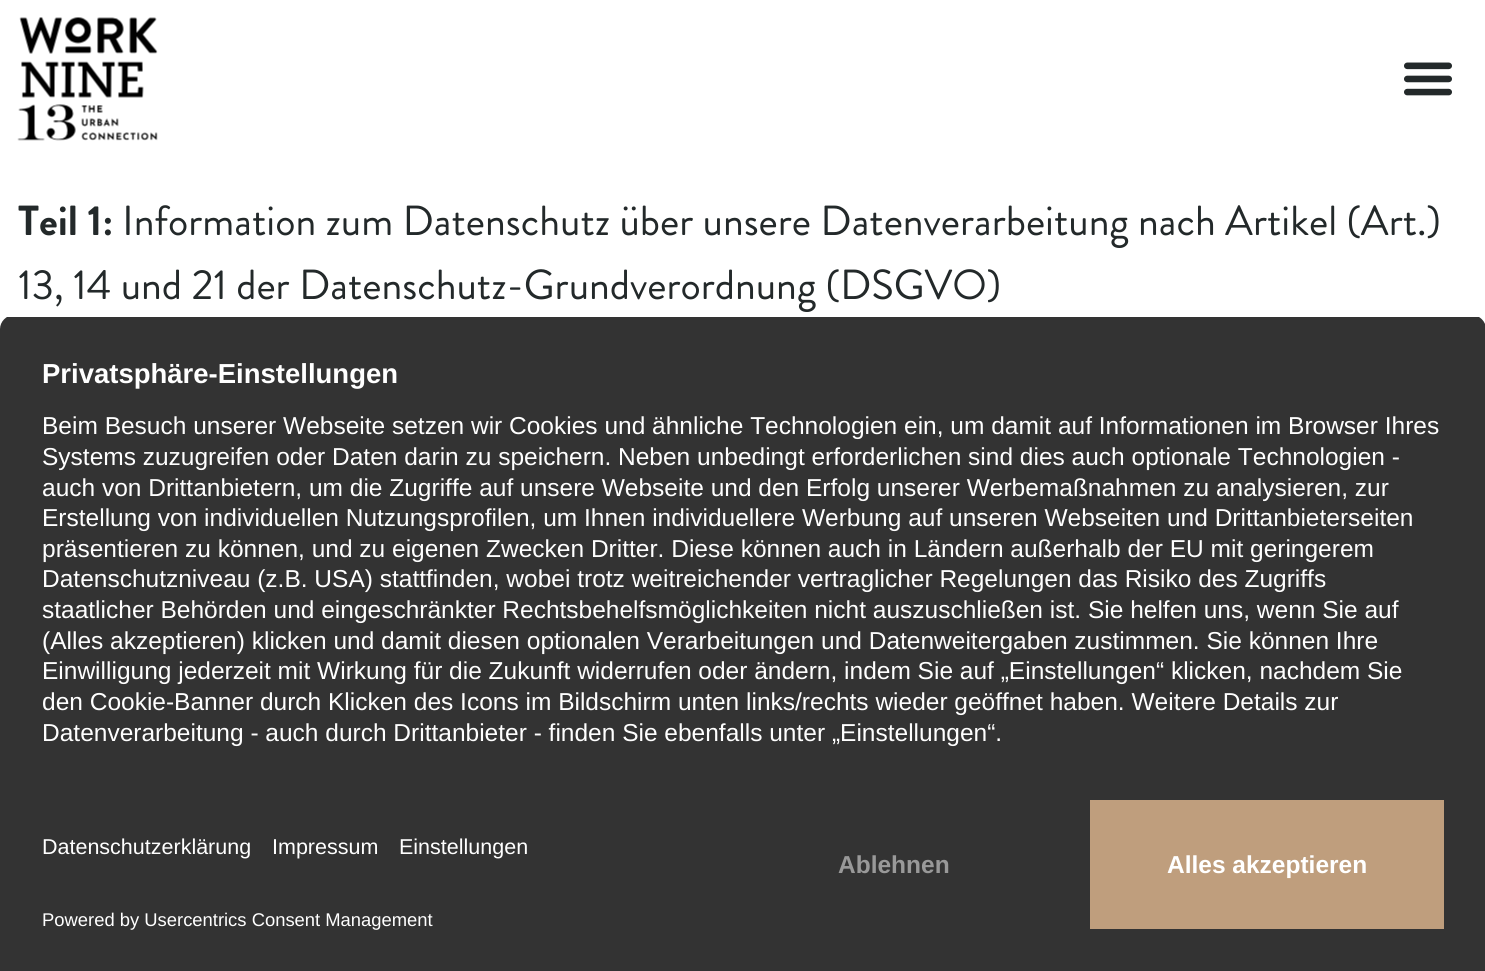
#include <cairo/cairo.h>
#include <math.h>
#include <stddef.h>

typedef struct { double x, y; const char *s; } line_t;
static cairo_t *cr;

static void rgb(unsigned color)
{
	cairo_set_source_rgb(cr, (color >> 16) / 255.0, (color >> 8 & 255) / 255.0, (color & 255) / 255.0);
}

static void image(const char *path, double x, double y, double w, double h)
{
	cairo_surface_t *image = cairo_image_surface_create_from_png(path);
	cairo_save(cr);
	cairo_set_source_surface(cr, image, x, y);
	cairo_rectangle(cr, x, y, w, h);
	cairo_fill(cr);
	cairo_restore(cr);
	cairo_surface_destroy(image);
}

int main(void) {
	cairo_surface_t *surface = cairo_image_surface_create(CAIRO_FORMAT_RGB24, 1485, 971);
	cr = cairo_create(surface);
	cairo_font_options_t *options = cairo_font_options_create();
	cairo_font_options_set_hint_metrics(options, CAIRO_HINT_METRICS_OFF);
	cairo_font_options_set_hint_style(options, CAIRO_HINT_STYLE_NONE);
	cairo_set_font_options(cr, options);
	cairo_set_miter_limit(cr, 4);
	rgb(0xffffff);
	cairo_paint(cr);
	image("img/1.png", 17, 17, 141, 124);
	image("img/2.png", 1404, 62, 48, 34);
	cairo_save(cr);
	cairo_new_path(cr);
	cairo_move_to(cr, 14, 315);
	cairo_line_to(cr, 1472, 315);
	cairo_curve_to(cr, 1479.5, 315, 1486, 321.5, 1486, 329);
	cairo_line_to(cr, 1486, 786);
	cairo_line_to(cr, 0, 786);
	cairo_line_to(cr, 0, 329);
	cairo_curve_to(cr, 0, 321.5, 6.5, 315, 14, 315);
	cairo_close_path(cr);
	cairo_clip(cr);
	rgb(0x333333);
	cairo_rectangle(cr, 0, 317, 1485, 469);
	cairo_fill(cr);
	cairo_restore(cr);
	rgb(0x333333);
	cairo_rectangle(cr, 0, 786, 1485, 185);
	cairo_fill(cr);
	rgb(0xbf9e7d);
	cairo_rectangle(cr, 1090, 800, 354, 129);
	cairo_fill(cr);
	cairo_select_font_face(cr, "Brandon Grotesque", CAIRO_FONT_SLANT_NORMAL, CAIRO_FONT_WEIGHT_BOLD);
	cairo_set_font_size(cr, 42);
	rgb(0x23292a);
	cairo_move_to(cr, 18, 235);
	cairo_show_text(cr, "Teil 1:");
	cairo_select_font_face(cr, "Brandon Grotesque", CAIRO_FONT_SLANT_NORMAL, CAIRO_FONT_WEIGHT_NORMAL);
	cairo_move_to(cr, 122, 235);
	cairo_show_text(cr, "Information zum Datenschutz über unsere Datenverarbeitung nach Artikel (Art.)");
	cairo_move_to(cr, 18, 299);
	cairo_show_text(cr, "13, 14 und 21 der Datenschutz-Grundverordnung (DSGVO)");
	cairo_select_font_face(cr, "Liberation Sans", CAIRO_FONT_SLANT_NORMAL, CAIRO_FONT_WEIGHT_BOLD);
	cairo_set_font_size(cr, 27.5);
	rgb(0xffffff);
	cairo_move_to(cr, 42, 383);
	cairo_show_text(cr, "Privatsphäre-Einstellungen");
	cairo_select_font_face(cr, "Liberation Sans", CAIRO_FONT_SLANT_NORMAL, CAIRO_FONT_WEIGHT_NORMAL);
	cairo_set_font_size(cr, 24.5);
	{
		static const line_t items[] = {
			{42, 434, "Beim Besuch unserer Webseite setzen wir Cookies und ähnliche Technologien ein, um damit auf Informationen im Browser Ihres"},
			{42, 465, "Systems zuzugreifen oder Daten darin zu speichern. Neben unbedingt erforderlichen sind dies auch optionale Technologien -"},
			{42, 496, "auch von Drittanbietern, um die Zugriffe auf unsere Webseite und den Erfolg unserer Werbemaßnahmen zu analysieren, zur"},
			{42, 526, "Erstellung von individuellen Nutzungsprofilen, um Ihnen individuellere Werbung auf unseren Webseiten und Drittanbieterseiten"},
			{42, 557, "präsentieren zu können, und zu eigenen Zwecken Dritter. Diese können auch in Ländern außerhalb der EU mit geringerem"},
			{42, 587, "Datenschutzniveau (z.B. USA) stattfinden, wobei trotz weitreichender vertraglicher Regelungen das Risiko des Zugriffs"},
			{42, 618, "staatlicher Behörden und eingeschränkter Rechtsbehelfsmöglichkeiten nicht auszuschließen ist. Sie helfen uns, wenn Sie auf"},
			{42, 649, "(Alles akzeptieren) klicken und damit diesen optionalen Verarbeitungen und Datenweitergaben zustimmen. Sie können Ihre"},
			{42, 679, "Einwilligung jederzeit mit Wirkung für die Zukunft widerrufen oder ändern, indem Sie auf „Einstellungen“ klicken, nachdem Sie"},
			{42, 710, "den Cookie-Banner durch Klicken des Icons im Bildschirm unten links/rechts wieder geöffnet haben. Weitere Details zur"},
			{42, 741, "Datenverarbeitung - auch durch Drittanbieter - finden Sie ebenfalls unter „Einstellungen“."},
		};
		for (size_t i = 0; i < sizeof items / sizeof *items; i++) {
			cairo_move_to(cr, items[i].x, items[i].y);
			cairo_show_text(cr, items[i].s);
		}
	}
	cairo_set_font_size(cr, 21.5);
	{
		static const line_t items[] = {
			{42, 854, "Datenschutzerklärung"},
			{272, 854, "Impressum"},
			{399, 854, "Einstellungen"},
		};
		for (size_t i = 0; i < sizeof items / sizeof *items; i++) {
			cairo_move_to(cr, items[i].x, items[i].y);
			cairo_show_text(cr, items[i].s);
		}
	}
	cairo_set_font_size(cr, 18.4);
	cairo_move_to(cr, 42, 926);
	cairo_show_text(cr, "Powered by Usercentrics Consent Management");
	cairo_select_font_face(cr, "Liberation Sans", CAIRO_FONT_SLANT_NORMAL, CAIRO_FONT_WEIGHT_BOLD);
	cairo_set_font_size(cr, 24.5);
	rgb(0x999999);
	cairo_move_to(cr, 838, 873);
	cairo_show_text(cr, "Ablehnen");
	rgb(0xffffff);
	cairo_move_to(cr, 1167, 873);
	cairo_show_text(cr, "Alles akzeptieren");
	cairo_surface_write_to_png(surface, "page.png");
	cairo_font_options_destroy(options);
	cairo_destroy(cr);
	cairo_surface_destroy(surface);
	return 0;
}
